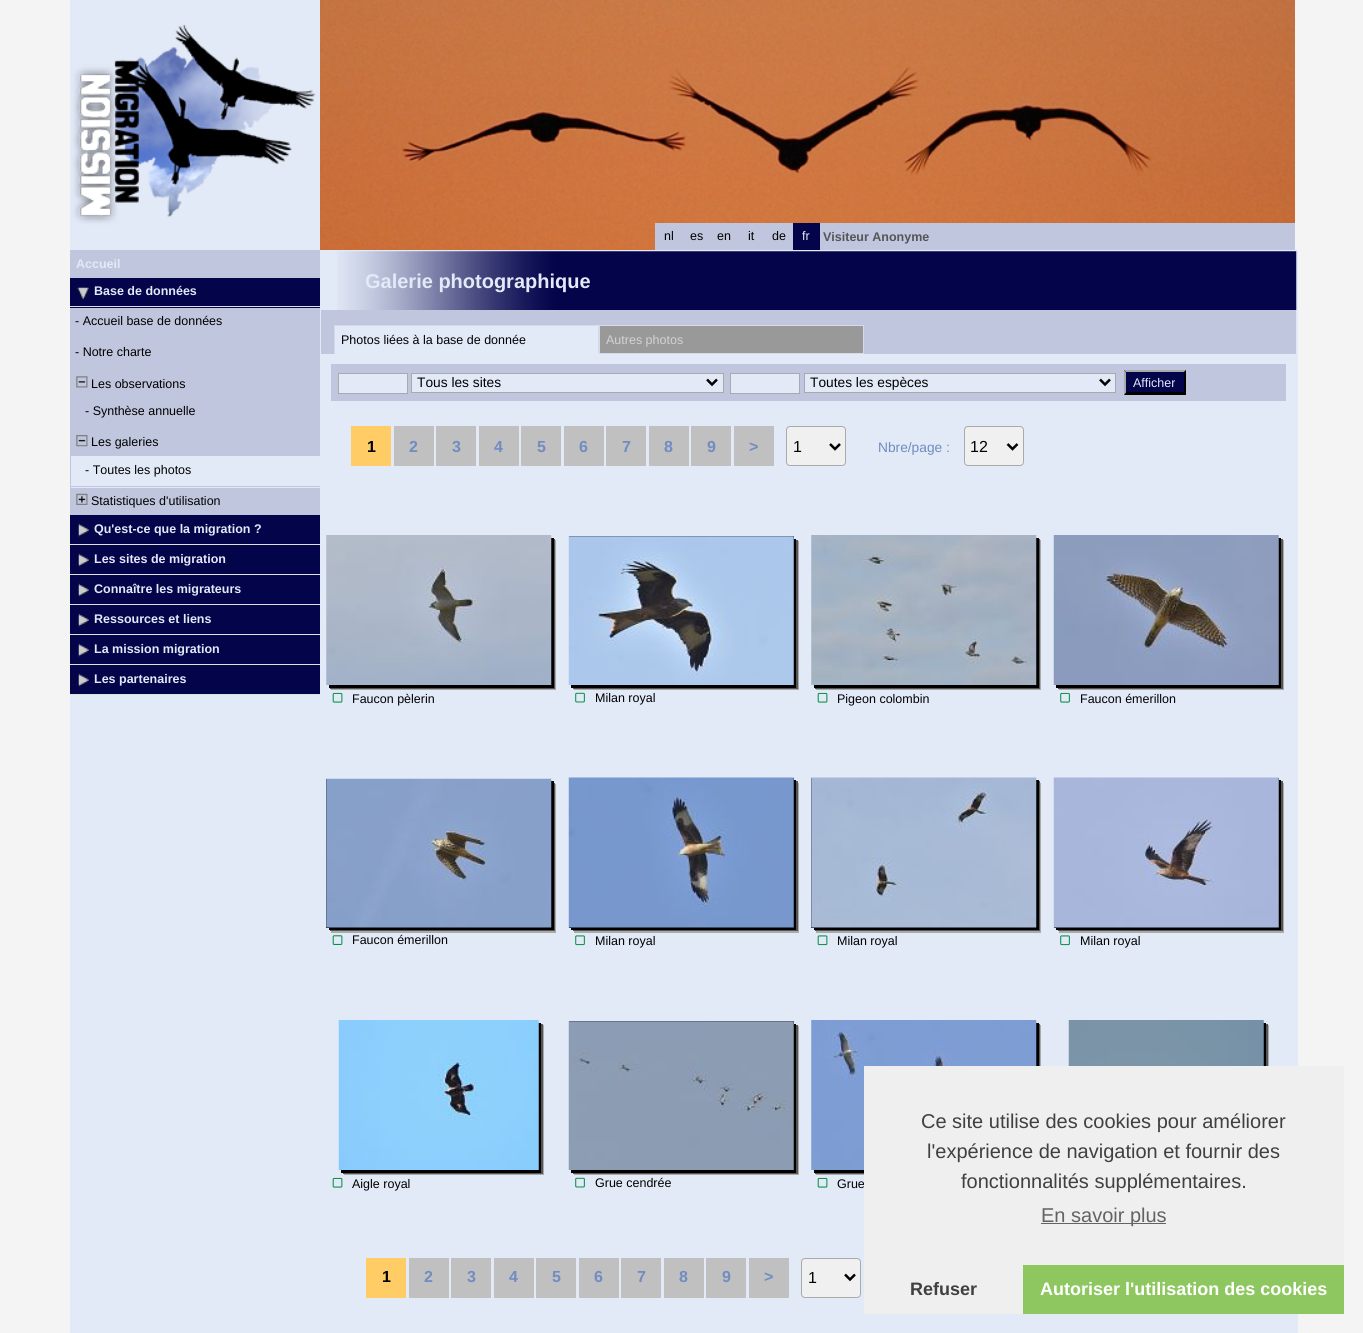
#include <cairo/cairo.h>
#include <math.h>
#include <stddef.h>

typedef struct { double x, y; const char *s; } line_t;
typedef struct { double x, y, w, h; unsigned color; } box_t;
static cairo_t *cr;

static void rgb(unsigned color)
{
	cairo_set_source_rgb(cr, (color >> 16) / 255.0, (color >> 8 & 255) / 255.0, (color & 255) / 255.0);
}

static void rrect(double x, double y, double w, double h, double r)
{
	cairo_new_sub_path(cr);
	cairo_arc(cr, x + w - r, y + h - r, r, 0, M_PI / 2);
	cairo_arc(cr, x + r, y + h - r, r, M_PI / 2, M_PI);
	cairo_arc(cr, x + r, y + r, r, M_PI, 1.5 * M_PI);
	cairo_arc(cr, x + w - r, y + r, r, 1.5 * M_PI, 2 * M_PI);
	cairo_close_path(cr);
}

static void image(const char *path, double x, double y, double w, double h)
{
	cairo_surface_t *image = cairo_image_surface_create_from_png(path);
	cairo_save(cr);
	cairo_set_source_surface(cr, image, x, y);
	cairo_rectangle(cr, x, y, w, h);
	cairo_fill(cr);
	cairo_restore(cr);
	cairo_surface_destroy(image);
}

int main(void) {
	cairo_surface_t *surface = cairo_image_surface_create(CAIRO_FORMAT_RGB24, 1363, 1333);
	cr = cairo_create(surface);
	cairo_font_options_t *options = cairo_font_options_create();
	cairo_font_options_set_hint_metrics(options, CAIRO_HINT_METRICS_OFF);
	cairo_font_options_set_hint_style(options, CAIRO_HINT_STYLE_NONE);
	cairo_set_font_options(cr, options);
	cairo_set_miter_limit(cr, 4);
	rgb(0xf4f4f4);
	cairo_paint(cr);
	image("img/1.png", 70, 0, 250, 250);
	image("img/2.png", 320, 0, 975, 250);
	{
		static const box_t items[] = {
			{655, 223, 138, 27, 0xc0c6dd},
			{793, 223, 27, 27, 0x04044b},
			{820, 223, 475, 27, 0xc0c6dd},
			{70, 456, 250, 877, 0xe2e9f7},
			{70, 250, 250, 28, 0xc0c6dd},
			{70, 278, 250, 30, 0x04044b},
			{70, 306, 250, 1, 0xe0e0e0},
		};
		for (size_t i = 0; i < sizeof items / sizeof *items; i++) {
			rgb(items[i].color);
			cairo_rectangle(cr, items[i].x, items[i].y, items[i].w, items[i].h);
			cairo_fill(cr);
		}
	}
	image("img/3.png", 77, 287, 12, 12);
	rgb(0xc0c6dd);
	cairo_rectangle(cr, 70, 308, 250, 148);
	cairo_fill(cr);
	image("img/4.png", 76, 376, 12, 12);
	image("img/5.png", 76, 435, 12, 12);
	{
		static const box_t items[] = {
			{70, 486, 250, 1, 0xc0c6dd},
			{70, 456, 1, 32, 0xc0c6dd},
			{70, 488, 250, 27, 0xc0c6dd},
		};
		for (size_t i = 0; i < sizeof items / sizeof *items; i++) {
			rgb(items[i].color);
			cairo_rectangle(cr, items[i].x, items[i].y, items[i].w, items[i].h);
			cairo_fill(cr);
		}
	}
	image("img/6.png", 76, 493, 12, 12);
	rgb(0x04044b);
	cairo_rectangle(cr, 70, 515, 250, 29);
	cairo_fill(cr);
	rgb(0xe0e0e0);
	cairo_rectangle(cr, 70, 544, 250, 1);
	cairo_fill(cr);
	image("img/7.png", 78, 523, 11, 14);
	rgb(0x04044b);
	cairo_rectangle(cr, 70, 545, 250, 29);
	cairo_fill(cr);
	rgb(0xe0e0e0);
	cairo_rectangle(cr, 70, 574, 250, 1);
	cairo_fill(cr);
	image("img/7.png", 78, 553, 11, 14);
	rgb(0x04044b);
	cairo_rectangle(cr, 70, 575, 250, 29);
	cairo_fill(cr);
	rgb(0xe0e0e0);
	cairo_rectangle(cr, 70, 604, 250, 1);
	cairo_fill(cr);
	image("img/7.png", 78, 583, 11, 14);
	rgb(0x04044b);
	cairo_rectangle(cr, 70, 605, 250, 29);
	cairo_fill(cr);
	rgb(0xe0e0e0);
	cairo_rectangle(cr, 70, 634, 250, 1);
	cairo_fill(cr);
	image("img/7.png", 78, 613, 11, 14);
	rgb(0x04044b);
	cairo_rectangle(cr, 70, 635, 250, 29);
	cairo_fill(cr);
	rgb(0xe0e0e0);
	cairo_rectangle(cr, 70, 664, 250, 1);
	cairo_fill(cr);
	image("img/7.png", 78, 643, 11, 14);
	rgb(0x04044b);
	cairo_rectangle(cr, 70, 665, 250, 29);
	cairo_fill(cr);
	rgb(0xe0e0e0);
	cairo_rectangle(cr, 70, 694, 250, 1);
	cairo_fill(cr);
	image("img/7.png", 78, 673, 11, 14);
	rgb(0xe2e9f7);
	cairo_rectangle(cr, 320, 250, 978, 1083);
	cairo_fill(cr);
	image("img/8.png", 337, 251, 960, 59);
	{
		static const box_t items[] = {
			{321, 310, 975, 44, 0xc0c6dd},
			{335, 326, 263, 27, 0xe2e9f7},
			{334, 325, 265, 1, 0xd4dae8},
			{598, 325, 1, 29, 0xd4dae8},
			{334, 353, 265, 1, 0xe2e9f7},
			{334, 325, 1, 29, 0xd4dae8},
		};
		for (size_t i = 0; i < sizeof items / sizeof *items; i++) {
			rgb(items[i].color);
			cairo_rectangle(cr, items[i].x, items[i].y, items[i].w, items[i].h);
			cairo_fill(cr);
		}
	}
	rgb(0x999999);
	cairo_rectangle(cr, 599.5, 325.5, 264, 28);
	cairo_fill_preserve(cr);
	rgb(0xd4dae8);
	cairo_set_line_width(cr, 1);
	cairo_stroke(cr);
	rgb(0xc0c6dd);
	cairo_rectangle(cr, 331, 364, 955, 37);
	cairo_fill(cr);
	rgb(0xe2e9f7);
	cairo_rectangle(cr, 338.5, 373.5, 69, 20);
	cairo_fill_preserve(cr);
	rgb(0xaaaaaa);
	cairo_stroke(cr);
	rgb(0xe2e9f7);
	cairo_rectangle(cr, 411.5, 373.5, 312, 19);
	cairo_fill_preserve(cr);
	rgb(0xaaaaaa);
	cairo_stroke(cr);
	cairo_new_path(cr);
	cairo_move_to(cr, 707, 379.5);
	cairo_line_to(cr, 712, 384.5);
	cairo_line_to(cr, 717, 379.5);
	rgb(0x000000);
	cairo_set_line_width(cr, 2.5);
	cairo_stroke(cr);
	rgb(0xe2e9f7);
	cairo_rectangle(cr, 730.5, 373.5, 69, 20);
	cairo_fill_preserve(cr);
	rgb(0xaaaaaa);
	cairo_set_line_width(cr, 1);
	cairo_stroke(cr);
	rgb(0xe2e9f7);
	cairo_rectangle(cr, 804.5, 373.5, 311, 19);
	cairo_fill_preserve(cr);
	rgb(0xaaaaaa);
	cairo_stroke(cr);
	cairo_new_path(cr);
	cairo_move_to(cr, 1100, 379.5);
	cairo_line_to(cr, 1105, 384.5);
	cairo_line_to(cr, 1110, 379.5);
	rgb(0x000000);
	cairo_set_line_width(cr, 2.5);
	cairo_stroke(cr);
	rgb(0x04044b);
	cairo_rectangle(cr, 1124, 370, 62, 25);
	cairo_fill(cr);
	rgb(0xaaaaaa);
	cairo_new_path(cr);
	cairo_move_to(cr, 1124, 370);
	cairo_line_to(cr, 1186, 370);
	cairo_line_to(cr, 1184, 372);
	cairo_line_to(cr, 1126, 372);
	cairo_close_path(cr);
	cairo_fill(cr);
	rgb(0x000000);
	cairo_new_path(cr);
	cairo_move_to(cr, 1186, 370);
	cairo_line_to(cr, 1186, 395);
	cairo_line_to(cr, 1184, 392.5);
	cairo_line_to(cr, 1184, 372.5);
	cairo_close_path(cr);
	cairo_fill(cr);
	cairo_new_path(cr);
	cairo_move_to(cr, 1186, 395);
	cairo_line_to(cr, 1124, 395);
	cairo_line_to(cr, 1126, 392);
	cairo_line_to(cr, 1184, 392);
	cairo_close_path(cr);
	cairo_fill(cr);
	rgb(0xaaaaaa);
	cairo_new_path(cr);
	cairo_move_to(cr, 1124, 395);
	cairo_line_to(cr, 1124, 370);
	cairo_line_to(cr, 1126, 372.5);
	cairo_line_to(cr, 1126, 392.5);
	cairo_close_path(cr);
	cairo_fill(cr);
	{
		static const box_t items[] = {
			{351, 426, 40, 40, 0xffcc66},
			{394, 426, 40, 40, 0xc0c0c0},
			{436, 426, 40, 40, 0xc0c0c0},
			{479, 426, 40, 40, 0xc0c0c0},
			{521, 426, 40, 40, 0xc0c0c0},
			{564, 426, 40, 40, 0xc0c0c0},
			{606, 426, 40, 40, 0xc0c0c0},
			{649, 426, 40, 40, 0xc0c0c0},
			{691, 426, 40, 40, 0xc0c0c0},
			{734, 426, 40, 40, 0xc0c0c0},
		};
		for (size_t i = 0; i < sizeof items / sizeof *items; i++) {
			rgb(items[i].color);
			cairo_rectangle(cr, items[i].x, items[i].y, items[i].w, items[i].h);
			cairo_fill(cr);
		}
	}
	rgb(0xf0f0f0);
	rrect(786.5, 426.5, 59, 39, 3.5);
	cairo_fill_preserve(cr);
	rgb(0xaaaaaa);
	cairo_set_line_width(cr, 1);
	cairo_stroke(cr);
	cairo_new_path(cr);
	cairo_move_to(cr, 830, 444);
	cairo_line_to(cr, 835, 449);
	cairo_line_to(cr, 840, 444);
	rgb(0x000000);
	cairo_set_line_width(cr, 2.5);
	cairo_stroke(cr);
	rgb(0xf0f0f0);
	rrect(964.5, 426.5, 59, 39, 3.5);
	cairo_fill_preserve(cr);
	rgb(0xaaaaaa);
	cairo_set_line_width(cr, 1);
	cairo_stroke(cr);
	cairo_new_path(cr);
	cairo_move_to(cr, 1007.5, 444);
	cairo_line_to(cr, 1012.5, 449);
	cairo_line_to(cr, 1017.5, 444);
	rgb(0x000000);
	cairo_set_line_width(cr, 2.5);
	cairo_stroke(cr);
	{
		static const box_t items[] = {
			{331, 540, 225, 150, 0xaaaaaa},
			{330, 539, 225, 150, 0x555555},
			{329, 538, 225, 150, 0x000000},
		};
		for (size_t i = 0; i < sizeof items / sizeof *items; i++) {
			rgb(items[i].color);
			cairo_rectangle(cr, items[i].x, items[i].y, items[i].w, items[i].h);
			cairo_fill(cr);
		}
	}
	image("img/9.png", 326, 535, 226, 150);
	image("img/10.png", 332, 692, 11, 11);
	{
		static const box_t items[] = {
			{574, 541, 225, 149, 0xaaaaaa},
			{573, 540, 225, 149, 0x555555},
			{571, 539, 225, 149, 0x000000},
			{569, 536, 225, 149, 0x000000},
		};
		for (size_t i = 0; i < sizeof items / sizeof *items; i++) {
			rgb(items[i].color);
			cairo_rectangle(cr, items[i].x, items[i].y, items[i].w, items[i].h);
			cairo_fill(cr);
		}
	}
	image("img/11.png", 568, 536, 226, 149);
	image("img/12.png", 575, 692, 10, 11);
	{
		static const box_t items[] = {
			{816, 540, 225, 150, 0xaaaaaa},
			{815, 539, 225, 150, 0x555555},
			{814, 538, 225, 150, 0x000000},
		};
		for (size_t i = 0; i < sizeof items / sizeof *items; i++) {
			rgb(items[i].color);
			cairo_rectangle(cr, items[i].x, items[i].y, items[i].w, items[i].h);
			cairo_fill(cr);
		}
	}
	image("img/13.png", 811, 535, 226, 150);
	image("img/10.png", 817, 692, 11, 11);
	{
		static const box_t items[] = {
			{1059, 540, 225, 150, 0xaaaaaa},
			{1058, 539, 225, 150, 0x555555},
			{1056, 538, 225, 150, 0x000000},
		};
		for (size_t i = 0; i < sizeof items / sizeof *items; i++) {
			rgb(items[i].color);
			cairo_rectangle(cr, items[i].x, items[i].y, items[i].w, items[i].h);
			cairo_fill(cr);
		}
	}
	image("img/14.png", 1053, 535, 226, 150);
	image("img/15.png", 1060, 692, 10, 11);
	{
		static const box_t items[] = {
			{331, 784, 225, 149, 0xaaaaaa},
			{330, 783, 225, 148, 0x555555},
			{329, 781, 225, 149, 0x000000},
			{326, 779, 225, 149, 0x000000},
		};
		for (size_t i = 0; i < sizeof items / sizeof *items; i++) {
			rgb(items[i].color);
			cairo_rectangle(cr, items[i].x, items[i].y, items[i].w, items[i].h);
			cairo_fill(cr);
		}
	}
	image("img/16.png", 326, 778, 226, 150);
	image("img/17.png", 332, 935, 11, 10);
	{
		static const box_t items[] = {
			{574, 783, 225, 150, 0xaaaaaa},
			{573, 781, 225, 150, 0x555555},
			{571, 780, 225, 150, 0x000000},
			{569, 778, 225, 150, 0x000000},
		};
		for (size_t i = 0; i < sizeof items / sizeof *items; i++) {
			rgb(items[i].color);
			cairo_rectangle(cr, items[i].x, items[i].y, items[i].w, items[i].h);
			cairo_fill(cr);
		}
	}
	image("img/18.png", 568, 777, 226, 151);
	image("img/19.png", 575, 935, 10, 11);
	{
		static const box_t items[] = {
			{816, 783, 225, 150, 0xaaaaaa},
			{815, 781, 225, 150, 0x555555},
			{814, 780, 225, 150, 0x000000},
			{811, 778, 225, 150, 0x000000},
		};
		for (size_t i = 0; i < sizeof items / sizeof *items; i++) {
			rgb(items[i].color);
			cairo_rectangle(cr, items[i].x, items[i].y, items[i].w, items[i].h);
			cairo_fill(cr);
		}
	}
	image("img/20.png", 811, 777, 226, 151);
	image("img/21.png", 817, 935, 11, 11);
	{
		static const box_t items[] = {
			{1059, 783, 225, 150, 0xaaaaaa},
			{1058, 781, 225, 150, 0x555555},
			{1056, 780, 225, 150, 0x000000},
			{1054, 778, 225, 150, 0x000000},
		};
		for (size_t i = 0; i < sizeof items / sizeof *items; i++) {
			rgb(items[i].color);
			cairo_rectangle(cr, items[i].x, items[i].y, items[i].w, items[i].h);
			cairo_fill(cr);
		}
	}
	image("img/22.png", 1053, 777, 226, 151);
	image("img/19.png", 1060, 935, 10, 11);
	{
		static const box_t items[] = {
			{1268, 1025, 1, 41, 0xaaaaaa},
			{1266, 1024, 2, 42, 0x555555},
			{1263, 1023, 3, 43, 0x000000},
		};
		for (size_t i = 0; i < sizeof items / sizeof *items; i++) {
			rgb(items[i].color);
			cairo_rectangle(cr, items[i].x, items[i].y, items[i].w, items[i].h);
			cairo_fill(cr);
		}
	}
	image("img/23.png", 1068, 1020, 196, 46);
	{
		static const box_t items[] = {
			{344, 1025, 200, 150, 0xaaaaaa},
			{343, 1024, 200, 150, 0x555555},
			{341, 1023, 200, 150, 0x000000},
		};
		for (size_t i = 0; i < sizeof items / sizeof *items; i++) {
			rgb(items[i].color);
			cairo_rectangle(cr, items[i].x, items[i].y, items[i].w, items[i].h);
			cairo_fill(cr);
		}
	}
	image("img/24.png", 338, 1020, 201, 150);
	image("img/10.png", 332, 1177, 11, 11);
	{
		static const box_t items[] = {
			{574, 1026, 225, 149, 0xaaaaaa},
			{573, 1025, 225, 149, 0x555555},
			{571, 1024, 225, 149, 0x000000},
			{569, 1021, 225, 149, 0x000000},
		};
		for (size_t i = 0; i < sizeof items / sizeof *items; i++) {
			rgb(items[i].color);
			cairo_rectangle(cr, items[i].x, items[i].y, items[i].w, items[i].h);
			cairo_fill(cr);
		}
	}
	image("img/25.png", 568, 1021, 226, 149);
	image("img/12.png", 575, 1177, 10, 11);
	{
		static const box_t items[] = {
			{816, 1025, 225, 150, 0xaaaaaa},
			{815, 1024, 225, 150, 0x555555},
			{814, 1023, 225, 150, 0x000000},
		};
		for (size_t i = 0; i < sizeof items / sizeof *items; i++) {
			rgb(items[i].color);
			cairo_rectangle(cr, items[i].x, items[i].y, items[i].w, items[i].h);
			cairo_fill(cr);
		}
	}
	image("img/26.png", 811, 1020, 226, 150);
	image("img/10.png", 817, 1177, 11, 11);
	{
		static const box_t items[] = {
			{366, 1258, 40, 40, 0xffcc66},
			{409, 1258, 40, 40, 0xc0c0c0},
			{451, 1258, 40, 40, 0xc0c0c0},
			{494, 1258, 40, 40, 0xc0c0c0},
			{536, 1258, 40, 40, 0xc0c0c0},
			{579, 1258, 40, 40, 0xc0c0c0},
			{621, 1258, 40, 40, 0xc0c0c0},
			{664, 1258, 40, 40, 0xc0c0c0},
			{706, 1258, 40, 40, 0xc0c0c0},
			{749, 1258, 40, 40, 0xc0c0c0},
		};
		for (size_t i = 0; i < sizeof items / sizeof *items; i++) {
			rgb(items[i].color);
			cairo_rectangle(cr, items[i].x, items[i].y, items[i].w, items[i].h);
			cairo_fill(cr);
		}
	}
	rgb(0xf0f0f0);
	rrect(801.5, 1258.5, 59, 39, 3.5);
	cairo_fill_preserve(cr);
	rgb(0xaaaaaa);
	cairo_set_line_width(cr, 1);
	cairo_stroke(cr);
	cairo_new_path(cr);
	cairo_move_to(cr, 845, 1274.5);
	cairo_line_to(cr, 850, 1279.5);
	cairo_line_to(cr, 855, 1274.5);
	rgb(0x000000);
	cairo_set_line_width(cr, 2.5);
	cairo_stroke(cr);
	cairo_select_font_face(cr, "Liberation Sans", CAIRO_FONT_SLANT_NORMAL, CAIRO_FONT_WEIGHT_NORMAL);
	cairo_set_font_size(cr, 12.5);
	{
		static const line_t items[] = {
			{664, 240, "nl"},
			{690, 240, "es"},
			{717, 240, "en"},
			{748, 240, "it"},
			{772, 240, "de"},
		};
		for (size_t i = 0; i < sizeof items / sizeof *items; i++) {
			cairo_move_to(cr, items[i].x, items[i].y);
			cairo_show_text(cr, items[i].s);
		}
	}
	rgb(0xe2e9f7);
	cairo_move_to(cr, 802, 240);
	cairo_show_text(cr, "fr");
	cairo_select_font_face(cr, "Liberation Sans", CAIRO_FONT_SLANT_NORMAL, CAIRO_FONT_WEIGHT_BOLD);
	rgb(0x555555);
	cairo_move_to(cr, 823, 241);
	cairo_show_text(cr, "Visiteur Anonyme");
	rgb(0xe2e9f7);
	cairo_move_to(cr, 76, 268);
	cairo_show_text(cr, "Accueil");
	cairo_move_to(cr, 94, 295);
	cairo_show_text(cr, "Base de données");
	cairo_select_font_face(cr, "Liberation Sans", CAIRO_FONT_SLANT_NORMAL, CAIRO_FONT_WEIGHT_NORMAL);
	rgb(0x000000);
	{
		static const line_t items[] = {
			{75, 325, "- Accueil base de données"},
			{75, 356, "- Notre charte"},
			{91, 388, "Les observations"},
			{85, 415, "- Synthèse annuelle"},
			{91, 446, "Les galeries"},
			{85, 474, "- Toutes les photos"},
			{91, 505, "Statistiques d'utilisation"},
		};
		for (size_t i = 0; i < sizeof items / sizeof *items; i++) {
			cairo_move_to(cr, items[i].x, items[i].y);
			cairo_show_text(cr, items[i].s);
		}
	}
	cairo_select_font_face(cr, "Liberation Sans", CAIRO_FONT_SLANT_NORMAL, CAIRO_FONT_WEIGHT_BOLD);
	rgb(0xe2e9f7);
	{
		static const line_t items[] = {
			{94, 533, "Qu'est-ce que la migration ?"},
			{94, 563, "Les sites de migration"},
			{94, 593, "Connaître les migrateurs"},
			{94, 623, "Ressources et liens"},
			{94, 653, "La mission migration"},
			{94, 683, "Les partenaires"},
		};
		for (size_t i = 0; i < sizeof items / sizeof *items; i++) {
			cairo_move_to(cr, items[i].x, items[i].y);
			cairo_show_text(cr, items[i].s);
		}
	}
	cairo_set_font_size(cr, 20);
	cairo_move_to(cr, 365, 288);
	cairo_show_text(cr, "Galerie photographique");
	cairo_select_font_face(cr, "Liberation Sans", CAIRO_FONT_SLANT_NORMAL, CAIRO_FONT_WEIGHT_NORMAL);
	cairo_set_font_size(cr, 12.5);
	rgb(0x000000);
	cairo_move_to(cr, 341, 344);
	cairo_show_text(cr, "Photos liées à la base de donnée");
	rgb(0xd3d3d3);
	cairo_move_to(cr, 606, 344);
	cairo_show_text(cr, "Autres photos");
	cairo_set_font_size(cr, 13.75);
	rgb(0x000000);
	cairo_move_to(cr, 417, 387);
	cairo_show_text(cr, "Tous les sites");
	cairo_move_to(cr, 810, 387);
	cairo_show_text(cr, "Toutes les espèces");
	cairo_set_font_size(cr, 12.5);
	rgb(0xe2e9f7);
	cairo_move_to(cr, 1133, 387);
	cairo_show_text(cr, "Afficher");
	cairo_select_font_face(cr, "Liberation Sans", CAIRO_FONT_SLANT_NORMAL, CAIRO_FONT_WEIGHT_BOLD);
	cairo_set_font_size(cr, 16);
	rgb(0x000000);
	cairo_move_to(cr, 367, 452);
	cairo_show_text(cr, "1");
	rgb(0x708cc0);
	{
		static const line_t items[] = {
			{409, 452, "2"},
			{452, 452, "3"},
			{494, 452, "4"},
			{537, 452, "5"},
			{579, 452, "6"},
			{622, 452, "7"},
			{664, 452, "8"},
			{707, 452, "9"},
			{749, 452, ">"},
		};
		for (size_t i = 0; i < sizeof items / sizeof *items; i++) {
			cairo_move_to(cr, items[i].x, items[i].y);
			cairo_show_text(cr, items[i].s);
		}
	}
	cairo_select_font_face(cr, "Liberation Sans", CAIRO_FONT_SLANT_NORMAL, CAIRO_FONT_WEIGHT_NORMAL);
	rgb(0x000000);
	cairo_move_to(cr, 793, 452);
	cairo_show_text(cr, "1");
	cairo_set_font_size(cr, 13.75);
	rgb(0x708cc0);
	cairo_move_to(cr, 878, 452);
	cairo_show_text(cr, "Nbre/page :");
	cairo_set_font_size(cr, 16);
	rgb(0x000000);
	cairo_move_to(cr, 970, 452);
	cairo_show_text(cr, "12");
	cairo_set_font_size(cr, 12.5);
	{
		static const line_t items[] = {
			{352, 703, "Faucon pèlerin"},
			{595, 702, "Milan royal"},
			{837, 703, "Pigeon colombin"},
			{1080, 703, "Faucon émerillon"},
			{352, 944, "Faucon émerillon"},
			{595, 945, "Milan royal"},
			{837, 945, "Milan royal"},
			{1080, 945, "Milan royal"},
			{352, 1188, "Aigle royal"},
			{595, 1187, "Grue cendrée"},
			{837, 1188, "Grue"},
		};
		for (size_t i = 0; i < sizeof items / sizeof *items; i++) {
			cairo_move_to(cr, items[i].x, items[i].y);
			cairo_show_text(cr, items[i].s);
		}
	}
	cairo_select_font_face(cr, "Liberation Sans", CAIRO_FONT_SLANT_NORMAL, CAIRO_FONT_WEIGHT_BOLD);
	cairo_set_font_size(cr, 16);
	cairo_move_to(cr, 382, 1282);
	cairo_show_text(cr, "1");
	rgb(0x708cc0);
	{
		static const line_t items[] = {
			{424, 1282, "2"},
			{467, 1282, "3"},
			{509, 1282, "4"},
			{552, 1282, "5"},
			{594, 1282, "6"},
			{637, 1282, "7"},
			{679, 1282, "8"},
			{722, 1282, "9"},
			{764, 1282, ">"},
		};
		for (size_t i = 0; i < sizeof items / sizeof *items; i++) {
			cairo_move_to(cr, items[i].x, items[i].y);
			cairo_show_text(cr, items[i].s);
		}
	}
	cairo_select_font_face(cr, "Liberation Sans", CAIRO_FONT_SLANT_NORMAL, CAIRO_FONT_WEIGHT_NORMAL);
	rgb(0x000000);
	cairo_move_to(cr, 808, 1283);
	cairo_show_text(cr, "1");
	rgb(0xefefef);
	cairo_rectangle(cr, 864, 1066, 480, 248);
	cairo_fill(cr);
	cairo_set_font_size(cr, 20);
	rgb(0x404040);
	{
		static const line_t items[] = {
			{921, 1128, "Ce site utilise des cookies pour améliorer"},
			{927, 1158, "l'expérience de navigation et fournir des"},
			{961, 1188, "fonctionnalités supplémentaires."},
		};
		for (size_t i = 0; i < sizeof items / sizeof *items; i++) {
			cairo_move_to(cr, items[i].x, items[i].y);
			cairo_show_text(cr, items[i].s);
		}
	}
	rgb(0x636363);
	cairo_rectangle(cr, 1041, 1223, 125, 1);
	cairo_fill(cr);
	cairo_move_to(cr, 1041, 1222);
	cairo_show_text(cr, "En savoir plus");
	cairo_select_font_face(cr, "Liberation Sans", CAIRO_FONT_SLANT_NORMAL, CAIRO_FONT_WEIGHT_BOLD);
	cairo_set_font_size(cr, 18);
	rgb(0x404040);
	cairo_move_to(cr, 910, 1295);
	cairo_show_text(cr, "Refuser");
	rgb(0x8ec760);
	cairo_rectangle(cr, 1023, 1265, 321, 49);
	cairo_fill(cr);
	rgb(0xffffff);
	cairo_move_to(cr, 1040, 1295);
	cairo_show_text(cr, "Autoriser l'utilisation des cookies");
	cairo_surface_write_to_png(surface, "page.png");
	cairo_font_options_destroy(options);
	cairo_destroy(cr);
	cairo_surface_destroy(surface);
	return 0;
}
